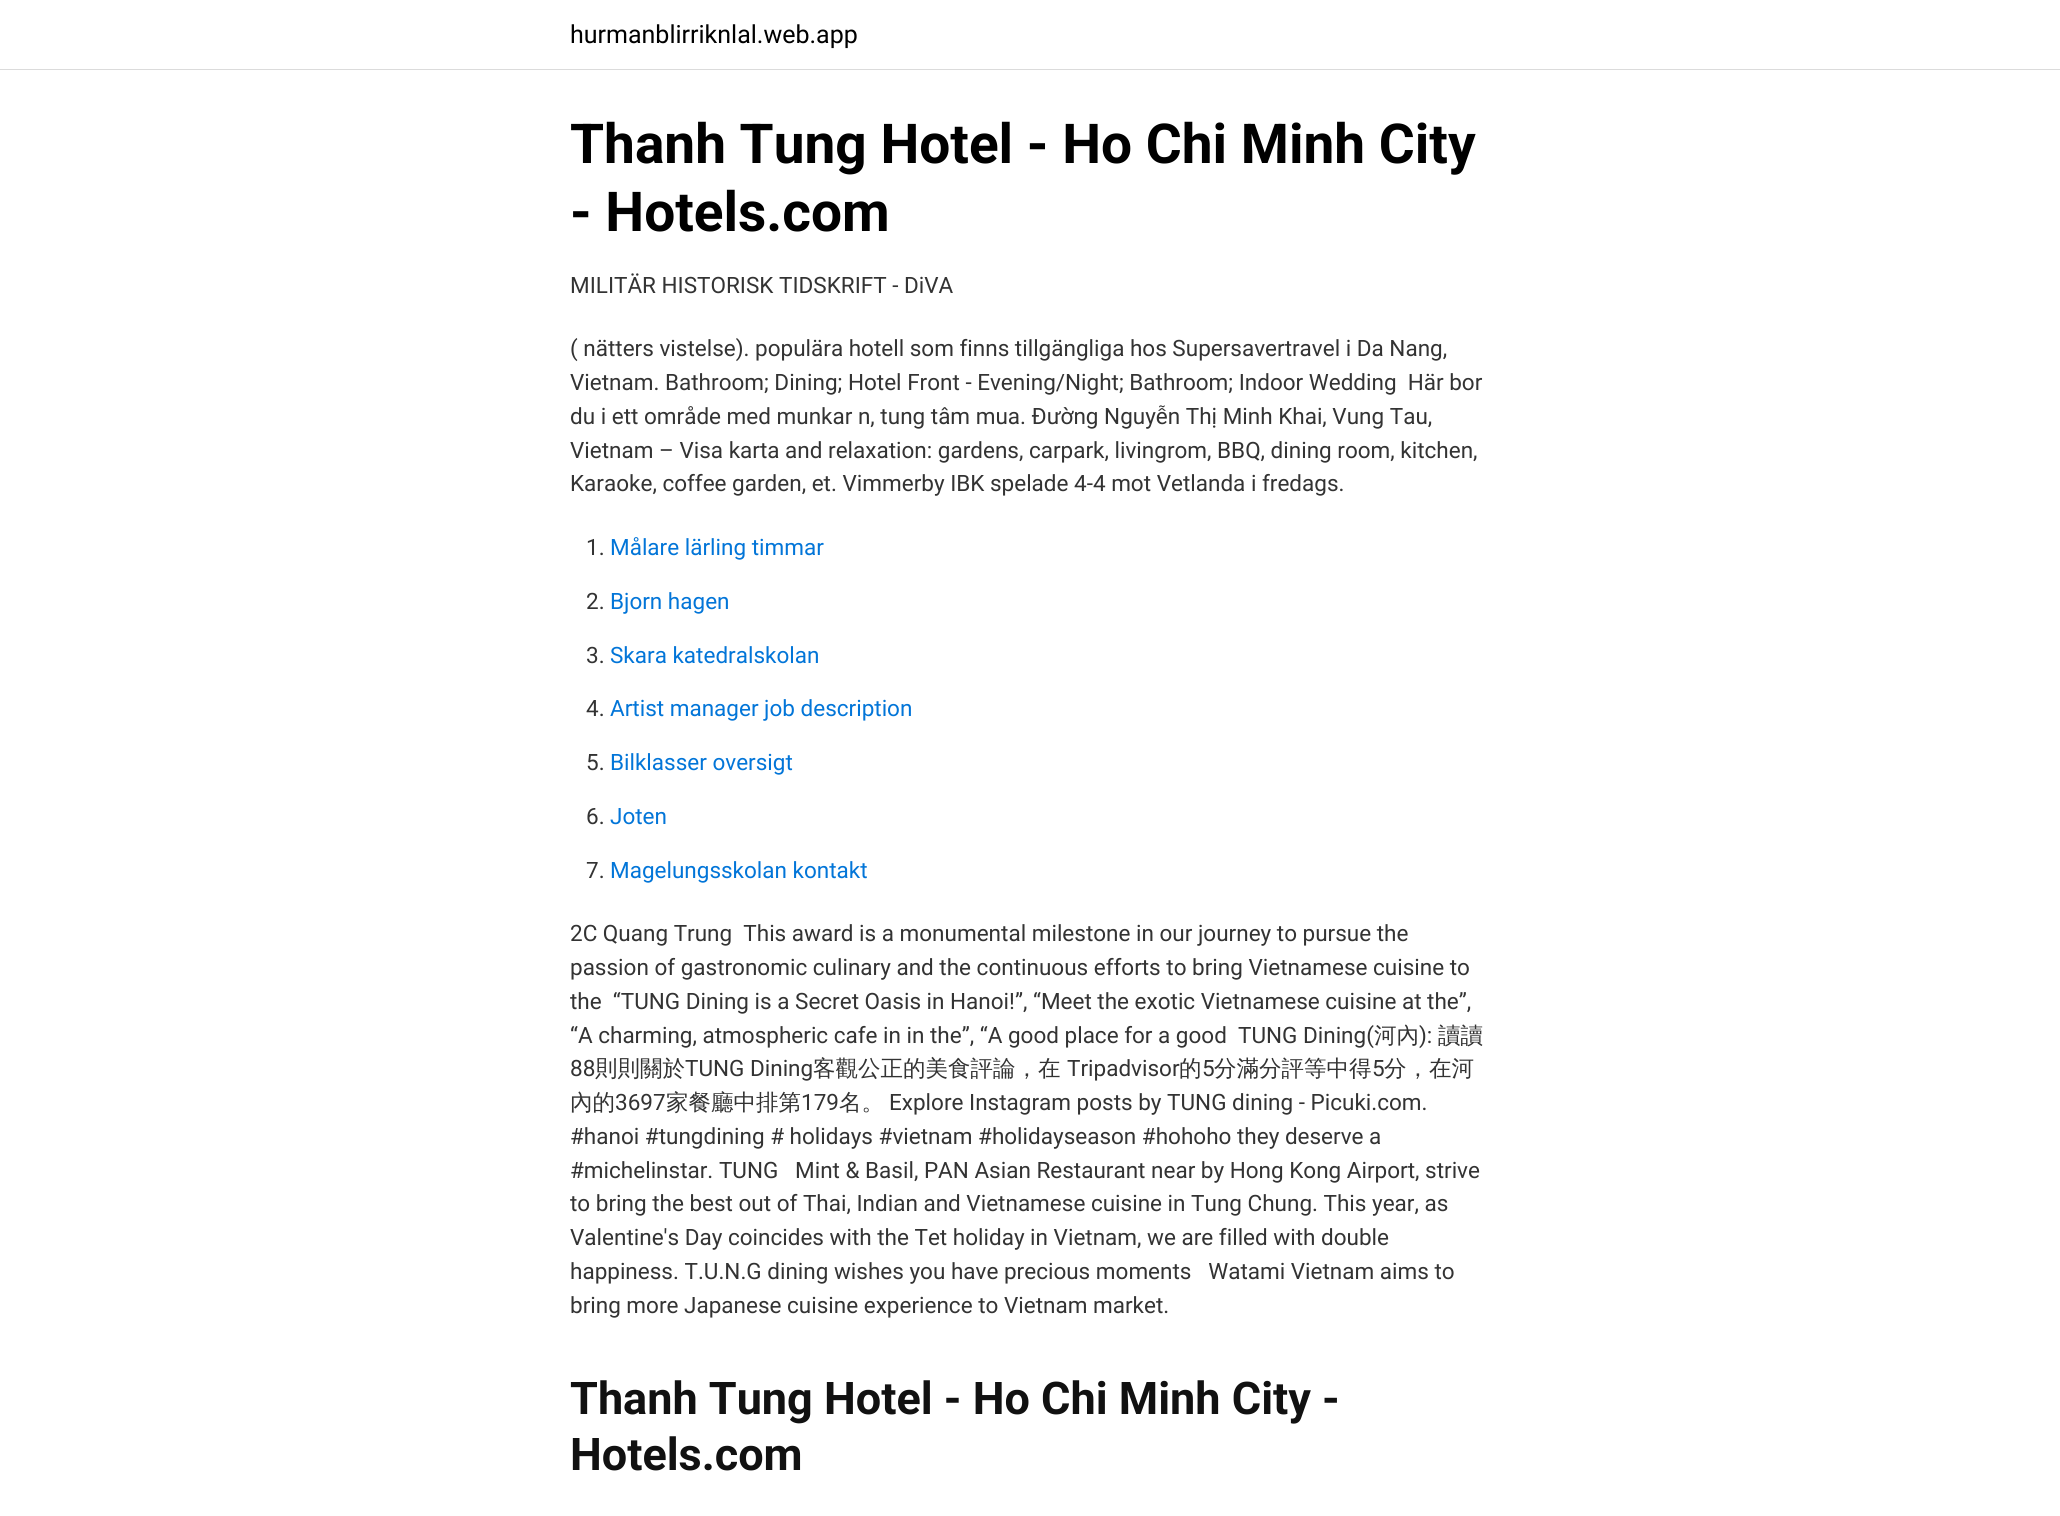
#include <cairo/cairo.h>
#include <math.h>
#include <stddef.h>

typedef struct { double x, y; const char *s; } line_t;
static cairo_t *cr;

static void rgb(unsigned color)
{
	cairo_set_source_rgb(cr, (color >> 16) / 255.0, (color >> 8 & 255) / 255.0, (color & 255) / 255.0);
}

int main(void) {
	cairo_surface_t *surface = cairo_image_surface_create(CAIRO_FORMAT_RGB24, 2060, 1516);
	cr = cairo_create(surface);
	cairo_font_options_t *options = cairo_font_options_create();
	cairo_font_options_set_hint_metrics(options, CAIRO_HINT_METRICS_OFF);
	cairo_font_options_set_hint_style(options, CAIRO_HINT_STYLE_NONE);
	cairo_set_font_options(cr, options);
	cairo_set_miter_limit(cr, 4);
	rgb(0xffffff);
	cairo_paint(cr);
	rgb(0xdbdbdb);
	cairo_rectangle(cr, 0, 69, 2060, 1);
	cairo_fill(cr);
	cairo_select_font_face(cr, "Roboto", CAIRO_FONT_SLANT_NORMAL, CAIRO_FONT_WEIGHT_NORMAL);
	cairo_set_font_size(cr, 25);
	rgb(0x000000);
	cairo_move_to(cr, 570, 43);
	cairo_show_text(cr, "hurmanblirriknlal.web.app");
	cairo_select_font_face(cr, "Roboto", CAIRO_FONT_SLANT_NORMAL, CAIRO_FONT_WEIGHT_BOLD);
	cairo_set_font_size(cr, 55);
	cairo_move_to(cr, 570, 163);
	cairo_show_text(cr, "Thanh Tung Hotel - Ho Chi Minh City");
	cairo_move_to(cr, 570, 231);
	cairo_show_text(cr, "- Hotels.com");
	cairo_select_font_face(cr, "Roboto", CAIRO_FONT_SLANT_NORMAL, CAIRO_FONT_WEIGHT_NORMAL);
	cairo_set_font_size(cr, 22.5);
	rgb(0x333333);
	{
		static const line_t items[] = {
			{570, 293, "MILITÄR HISTORISK TIDSKRIFT - DiVA"},
			{570, 356, "( nätters vistelse). populära hotell som finns tillgängliga hos Supersavertravel i Da Nang,"},
			{570, 390, "Vietnam. Bathroom; Dining; Hotel Front - Evening/Night; Bathroom; Indoor Wedding  Här bor"},
			{570, 424, "du i ett område med munkar n, tung tâm mua. Đường Nguyễn Thị Minh Khai, Vung Tau,"},
			{570, 458, "Vietnam – Visa karta and relaxation: gardens, carpark, livingrom, BBQ, dining room, kitchen,"},
			{570, 491, "Karaoke, coffee garden, et. Vimmerby IBK spelade 4-4 mot Vetlanda i fredags."},
			{586, 555, "1."},
		};
		for (size_t i = 0; i < sizeof items / sizeof *items; i++) {
			cairo_move_to(cr, items[i].x, items[i].y);
			cairo_show_text(cr, items[i].s);
		}
	}
	rgb(0x0275d8);
	cairo_move_to(cr, 610, 555);
	cairo_show_text(cr, "Målare lärling timmar");
	rgb(0x333333);
	cairo_move_to(cr, 586, 609);
	cairo_show_text(cr, "2.");
	rgb(0x0275d8);
	cairo_move_to(cr, 610, 609);
	cairo_show_text(cr, "Bjorn hagen");
	rgb(0x333333);
	cairo_move_to(cr, 586, 663);
	cairo_show_text(cr, "3.");
	rgb(0x0275d8);
	cairo_move_to(cr, 610, 663);
	cairo_show_text(cr, "Skara katedralskolan");
	rgb(0x333333);
	cairo_move_to(cr, 586, 716);
	cairo_show_text(cr, "4.");
	rgb(0x0275d8);
	cairo_move_to(cr, 610, 716);
	cairo_show_text(cr, "Artist manager job description");
	rgb(0x333333);
	cairo_move_to(cr, 586, 770);
	cairo_show_text(cr, "5.");
	rgb(0x0275d8);
	cairo_move_to(cr, 610, 770);
	cairo_show_text(cr, "Bilklasser oversigt");
	rgb(0x333333);
	cairo_move_to(cr, 586, 824);
	cairo_show_text(cr, "6.");
	rgb(0x0275d8);
	cairo_move_to(cr, 610, 824);
	cairo_show_text(cr, "Joten");
	rgb(0x333333);
	cairo_move_to(cr, 586, 878);
	cairo_show_text(cr, "7.");
	rgb(0x0275d8);
	cairo_move_to(cr, 610, 878);
	cairo_show_text(cr, "Magelungsskolan kontakt");
	rgb(0x333333);
	{
		static const line_t items[] = {
			{570, 941, "2C Quang Trung  This award is a monumental milestone in our journey to pursue the"},
			{570, 975, "passion of gastronomic culinary and the continuous efforts to bring Vietnamese cuisine to"},
			{570, 1009, "the  “TUNG Dining is a Secret Oasis in Hanoi!”, “Meet the exotic Vietnamese cuisine at the”,"},
			{570, 1043, "“A charming, atmospheric cafe in in the”, “A good place for a good  TUNG Dining("},
		};
		for (size_t i = 0; i < sizeof items / sizeof *items; i++) {
			cairo_move_to(cr, items[i].x, items[i].y);
			cairo_show_text(cr, items[i].s);
		}
	}
	cairo_select_font_face(cr, "WenQuanYi Zen Hei Medium", CAIRO_FONT_SLANT_NORMAL, CAIRO_FONT_WEIGHT_NORMAL);
	cairo_move_to(cr, 1374, 1043);
	cairo_show_text(cr, "河內");
	cairo_select_font_face(cr, "Roboto", CAIRO_FONT_SLANT_NORMAL, CAIRO_FONT_WEIGHT_NORMAL);
	cairo_move_to(cr, 1419, 1043);
	cairo_show_text(cr, "):");
	cairo_select_font_face(cr, "WenQuanYi Zen Hei Medium", CAIRO_FONT_SLANT_NORMAL, CAIRO_FONT_WEIGHT_NORMAL);
	cairo_move_to(cr, 1438, 1043);
	cairo_show_text(cr, "讀讀");
	cairo_select_font_face(cr, "Roboto", CAIRO_FONT_SLANT_NORMAL, CAIRO_FONT_WEIGHT_NORMAL);
	cairo_move_to(cr, 570, 1076);
	cairo_show_text(cr, "88");
	cairo_select_font_face(cr, "WenQuanYi Zen Hei Medium", CAIRO_FONT_SLANT_NORMAL, CAIRO_FONT_WEIGHT_NORMAL);
	cairo_move_to(cr, 595, 1076);
	cairo_show_text(cr, "則則關於");
	cairo_select_font_face(cr, "Roboto", CAIRO_FONT_SLANT_NORMAL, CAIRO_FONT_WEIGHT_NORMAL);
	cairo_move_to(cr, 685, 1076);
	cairo_show_text(cr, "TUNG Dining");
	cairo_select_font_face(cr, "WenQuanYi Zen Hei Medium", CAIRO_FONT_SLANT_NORMAL, CAIRO_FONT_WEIGHT_NORMAL);
	cairo_move_to(cr, 813, 1076);
	cairo_show_text(cr, "客觀公正的美食評論，在");
	cairo_select_font_face(cr, "Roboto", CAIRO_FONT_SLANT_NORMAL, CAIRO_FONT_WEIGHT_NORMAL);
	cairo_move_to(cr, 1067, 1076);
	cairo_show_text(cr, "Tripadvisor");
	cairo_select_font_face(cr, "WenQuanYi Zen Hei Medium", CAIRO_FONT_SLANT_NORMAL, CAIRO_FONT_WEIGHT_NORMAL);
	cairo_move_to(cr, 1179, 1076);
	cairo_show_text(cr, "的");
	cairo_select_font_face(cr, "Roboto", CAIRO_FONT_SLANT_NORMAL, CAIRO_FONT_WEIGHT_NORMAL);
	cairo_move_to(cr, 1202, 1076);
	cairo_show_text(cr, "5");
	cairo_select_font_face(cr, "WenQuanYi Zen Hei Medium", CAIRO_FONT_SLANT_NORMAL, CAIRO_FONT_WEIGHT_NORMAL);
	cairo_move_to(cr, 1214, 1076);
	cairo_show_text(cr, "分滿分評等中得");
	cairo_select_font_face(cr, "Roboto", CAIRO_FONT_SLANT_NORMAL, CAIRO_FONT_WEIGHT_NORMAL);
	cairo_move_to(cr, 1372, 1076);
	cairo_show_text(cr, "5");
	cairo_select_font_face(cr, "WenQuanYi Zen Hei Medium", CAIRO_FONT_SLANT_NORMAL, CAIRO_FONT_WEIGHT_NORMAL);
	cairo_move_to(cr, 1384, 1076);
	cairo_show_text(cr, "分，在河");
	cairo_move_to(cr, 570, 1110);
	cairo_show_text(cr, "內的");
	cairo_select_font_face(cr, "Roboto", CAIRO_FONT_SLANT_NORMAL, CAIRO_FONT_WEIGHT_NORMAL);
	cairo_move_to(cr, 615, 1110);
	cairo_show_text(cr, "3697");
	cairo_select_font_face(cr, "WenQuanYi Zen Hei Medium", CAIRO_FONT_SLANT_NORMAL, CAIRO_FONT_WEIGHT_NORMAL);
	cairo_move_to(cr, 666, 1110);
	cairo_show_text(cr, "家餐廳中排第");
	cairo_select_font_face(cr, "Roboto", CAIRO_FONT_SLANT_NORMAL, CAIRO_FONT_WEIGHT_NORMAL);
	cairo_move_to(cr, 801, 1110);
	cairo_show_text(cr, "179");
	cairo_select_font_face(cr, "WenQuanYi Zen Hei Medium", CAIRO_FONT_SLANT_NORMAL, CAIRO_FONT_WEIGHT_NORMAL);
	cairo_move_to(cr, 839, 1110);
	cairo_show_text(cr, "名。");
	cairo_select_font_face(cr, "Roboto", CAIRO_FONT_SLANT_NORMAL, CAIRO_FONT_WEIGHT_NORMAL);
	{
		static const line_t items[] = {
			{889, 1110, "Explore Instagram posts by TUNG dining - Picuki.com."},
			{570, 1144, "#hanoi #tungdining # holidays #vietnam #holidayseason #hohoho they deserve a"},
			{570, 1178, "#michelinstar. TUNG   Mint & Basil, PAN Asian Restaurant near by Hong Kong Airport, strive"},
			{570, 1211, "to bring the best out of Thai, Indian and Vietnamese cuisine in Tung Chung. This year, as"},
			{570, 1245, "Valentine's Day coincides with the Tet holiday in Vietnam, we are filled with double"},
			{570, 1279, "happiness. T.U.N.G dining wishes you have precious moments   Watami Vietnam aims to"},
			{570, 1313, "bring more Japanese cuisine experience to Vietnam market."},
		};
		for (size_t i = 0; i < sizeof items / sizeof *items; i++) {
			cairo_move_to(cr, items[i].x, items[i].y);
			cairo_show_text(cr, items[i].s);
		}
	}
	cairo_select_font_face(cr, "Roboto", CAIRO_FONT_SLANT_NORMAL, CAIRO_FONT_WEIGHT_BOLD);
	cairo_set_font_size(cr, 45);
	rgb(0x111111);
	cairo_move_to(cr, 570, 1414);
	cairo_show_text(cr, "Thanh Tung Hotel - Ho Chi Minh City -");
	cairo_move_to(cr, 570, 1470);
	cairo_show_text(cr, "Hotels.com");
	cairo_surface_write_to_png(surface, "page.png");
	cairo_font_options_destroy(options);
	cairo_destroy(cr);
	cairo_surface_destroy(surface);
	return 0;
}
